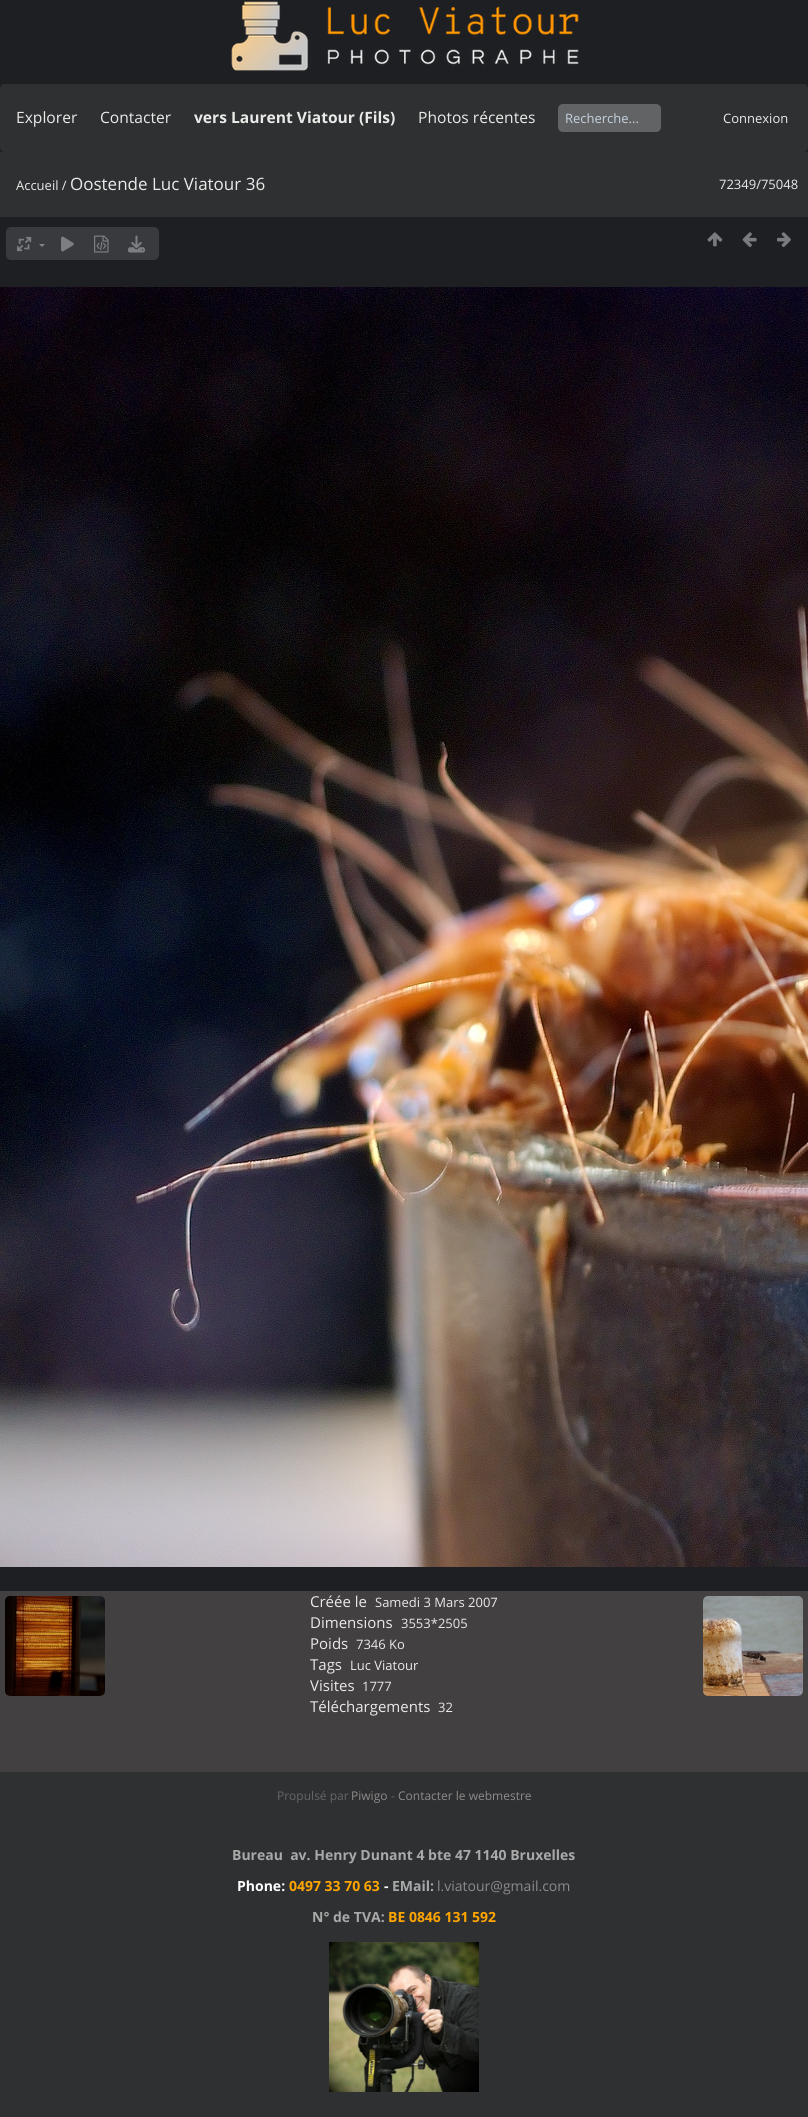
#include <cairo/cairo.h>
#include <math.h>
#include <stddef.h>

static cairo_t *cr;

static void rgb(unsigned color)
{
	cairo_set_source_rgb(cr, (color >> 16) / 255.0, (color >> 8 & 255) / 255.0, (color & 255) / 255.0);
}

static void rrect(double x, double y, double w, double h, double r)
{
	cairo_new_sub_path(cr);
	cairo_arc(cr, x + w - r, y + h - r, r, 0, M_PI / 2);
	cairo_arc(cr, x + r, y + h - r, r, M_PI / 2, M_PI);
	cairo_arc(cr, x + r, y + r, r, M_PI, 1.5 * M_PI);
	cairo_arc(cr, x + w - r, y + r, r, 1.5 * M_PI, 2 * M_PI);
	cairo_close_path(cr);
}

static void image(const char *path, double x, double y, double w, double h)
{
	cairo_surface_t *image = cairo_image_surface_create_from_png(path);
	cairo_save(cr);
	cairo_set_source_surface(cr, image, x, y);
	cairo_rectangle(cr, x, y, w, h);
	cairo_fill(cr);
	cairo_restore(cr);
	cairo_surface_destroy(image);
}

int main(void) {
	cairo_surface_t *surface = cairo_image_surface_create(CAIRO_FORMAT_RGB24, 808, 2117);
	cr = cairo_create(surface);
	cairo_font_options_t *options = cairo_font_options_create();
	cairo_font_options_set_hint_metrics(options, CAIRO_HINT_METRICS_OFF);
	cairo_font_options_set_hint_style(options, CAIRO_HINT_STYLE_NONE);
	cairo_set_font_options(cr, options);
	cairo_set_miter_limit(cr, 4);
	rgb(0x1e1f23);
	cairo_paint(cr);
	image("img/1.png", 231, 1, 348, 70);
	rgb(0x2f3032);
	rrect(0, 84, 808, 68, 5);
	cairo_fill(cr);
	rgb(0x616364);
	rrect(558, 104, 103, 28, 5);
	cairo_fill(cr);
	rgb(0x2f3032);
	cairo_rectangle(cr, 0, 152, 808, 65);
	cairo_fill(cr);
	rgb(0x393a3d);
	rrect(6, 227, 153, 33, 5);
	cairo_fill(cr);
	image("img/2.png", 17, 236, 15, 16);
	rgb(0x848588);
	cairo_new_path(cr);
	cairo_move_to(cr, 39, 244);
	cairo_line_to(cr, 45, 244);
	cairo_line_to(cr, 42, 247);
	cairo_close_path(cr);
	cairo_fill(cr);
	image("img/3.png", 61, 236, 13, 16);
	image("img/4.png", 94, 235, 15, 18);
	image("img/5.png", 128, 235, 17, 18);
	image("img/6.png", 707, 232, 16, 15);
	image("img/7.png", 742, 232, 15, 15);
	image("img/8.png", 777, 232, 14, 15);
	image("img/9.png", 0, 287, 808, 1280);
	rgb(0x424040);
	cairo_rectangle(cr, 0, 1591, 808, 181);
	cairo_fill(cr);
	image("img/10.png", 5, 1596, 100, 100);
	image("img/11.png", 703, 1596, 100, 100);
	rgb(0x2f3032);
	cairo_rectangle(cr, 0, 1772, 808, 345);
	cairo_fill(cr);
	image("img/12.png", 329, 1942, 150, 150);
	cairo_select_font_face(cr, "Open Sans", CAIRO_FONT_SLANT_NORMAL, CAIRO_FONT_WEIGHT_NORMAL);
	cairo_set_font_size(cr, 15.6);
	rgb(0xeaeae9);
	cairo_move_to(cr, 16, 123);
	cairo_show_text(cr, "Explorer");
	cairo_move_to(cr, 100, 123);
	cairo_show_text(cr, "Contacter");
	cairo_select_font_face(cr, "Open Sans", CAIRO_FONT_SLANT_NORMAL, CAIRO_FONT_WEIGHT_BOLD);
	cairo_move_to(cr, 194, 123);
	cairo_show_text(cr, "vers Laurent Viatour (Fils)");
	cairo_select_font_face(cr, "Open Sans", CAIRO_FONT_SLANT_NORMAL, CAIRO_FONT_WEIGHT_NORMAL);
	cairo_move_to(cr, 418, 123);
	cairo_show_text(cr, "Photos récentes");
	cairo_set_font_size(cr, 13);
	rgb(0xc7d3e1);
	cairo_move_to(cr, 565, 123);
	cairo_show_text(cr, "Recherche...");
	rgb(0xeaeae9);
	cairo_move_to(cr, 723, 123);
	cairo_show_text(cr, "Connexion");
	cairo_move_to(cr, 16, 190);
	cairo_show_text(cr, "Accueil /");
	cairo_set_font_size(cr, 17);
	cairo_move_to(cr, 70, 190);
	cairo_show_text(cr, "Oostende Luc Viatour 36");
	cairo_set_font_size(cr, 13);
	cairo_move_to(cr, 719, 189);
	cairo_show_text(cr, "72349/75048");
	cairo_set_font_size(cr, 15);
	cairo_move_to(cr, 310, 1607);
	cairo_show_text(cr, "Créée le");
	cairo_set_font_size(cr, 13);
	cairo_move_to(cr, 375, 1607);
	cairo_show_text(cr, "Samedi 3 Mars 2007");
	cairo_set_font_size(cr, 15);
	cairo_move_to(cr, 310, 1628);
	cairo_show_text(cr, "Dimensions");
	cairo_set_font_size(cr, 13);
	cairo_move_to(cr, 401, 1628);
	cairo_show_text(cr, "3553*2505");
	cairo_set_font_size(cr, 15);
	cairo_move_to(cr, 310, 1649);
	cairo_show_text(cr, "Poids");
	cairo_set_font_size(cr, 13);
	cairo_move_to(cr, 356, 1649);
	cairo_show_text(cr, "7346 Ko");
	cairo_set_font_size(cr, 15);
	cairo_move_to(cr, 310, 1670);
	cairo_show_text(cr, "Tags");
	cairo_set_font_size(cr, 13);
	cairo_move_to(cr, 350, 1670);
	cairo_show_text(cr, "Luc Viatour");
	cairo_set_font_size(cr, 15);
	cairo_move_to(cr, 310, 1691);
	cairo_show_text(cr, "Visites");
	cairo_set_font_size(cr, 13);
	cairo_move_to(cr, 362, 1691);
	cairo_show_text(cr, "1777");
	cairo_set_font_size(cr, 15);
	cairo_move_to(cr, 310, 1712);
	cairo_show_text(cr, "Téléchargements");
	cairo_set_font_size(cr, 13);
	cairo_move_to(cr, 438, 1712);
	cairo_show_text(cr, "32");
	cairo_set_font_size(cr, 12);
	rgb(0x666666);
	cairo_move_to(cr, 277, 1800);
	cairo_show_text(cr, "Propulsé par");
	rgb(0x8d8b8b);
	cairo_move_to(cr, 351, 1800);
	cairo_show_text(cr, "Piwigo");
	rgb(0x666666);
	cairo_move_to(cr, 391, 1800);
	cairo_show_text(cr, "-");
	rgb(0x8d8b8b);
	cairo_move_to(cr, 398, 1800);
	cairo_show_text(cr, "Contacter le webmestre");
	cairo_select_font_face(cr, "Open Sans", CAIRO_FONT_SLANT_NORMAL, CAIRO_FONT_WEIGHT_BOLD);
	cairo_set_font_size(cr, 14);
	rgb(0xa9a9a9);
	cairo_move_to(cr, 232, 1860);
	cairo_show_text(cr, "Bureau  av. Henry Dunant 4 bte 47 1140 Bruxelles");
	rgb(0xffffff);
	cairo_move_to(cr, 237, 1891);
	cairo_show_text(cr, "Phone:");
	rgb(0xffa500);
	cairo_move_to(cr, 289, 1891);
	cairo_show_text(cr, "0497 33 70 63");
	rgb(0xffffff);
	cairo_move_to(cr, 384, 1891);
	cairo_show_text(cr, "-");
	rgb(0xa9a9a9);
	cairo_move_to(cr, 392, 1891);
	cairo_show_text(cr, "EMail:");
	cairo_select_font_face(cr, "Open Sans", CAIRO_FONT_SLANT_NORMAL, CAIRO_FONT_WEIGHT_NORMAL);
	rgb(0x8d8b8b);
	cairo_move_to(cr, 437, 1891);
	cairo_show_text(cr, "l.viatour@gmail.com");
	cairo_select_font_face(cr, "Open Sans", CAIRO_FONT_SLANT_NORMAL, CAIRO_FONT_WEIGHT_BOLD);
	rgb(0xa9a9a9);
	cairo_move_to(cr, 312, 1922);
	cairo_show_text(cr, "N° de TVA:");
	rgb(0xffa500);
	cairo_move_to(cr, 388, 1922);
	cairo_show_text(cr, "BE 0846 131 592");
	cairo_surface_write_to_png(surface, "page.png");
	cairo_font_options_destroy(options);
	cairo_destroy(cr);
	cairo_surface_destroy(surface);
	return 0;
}
